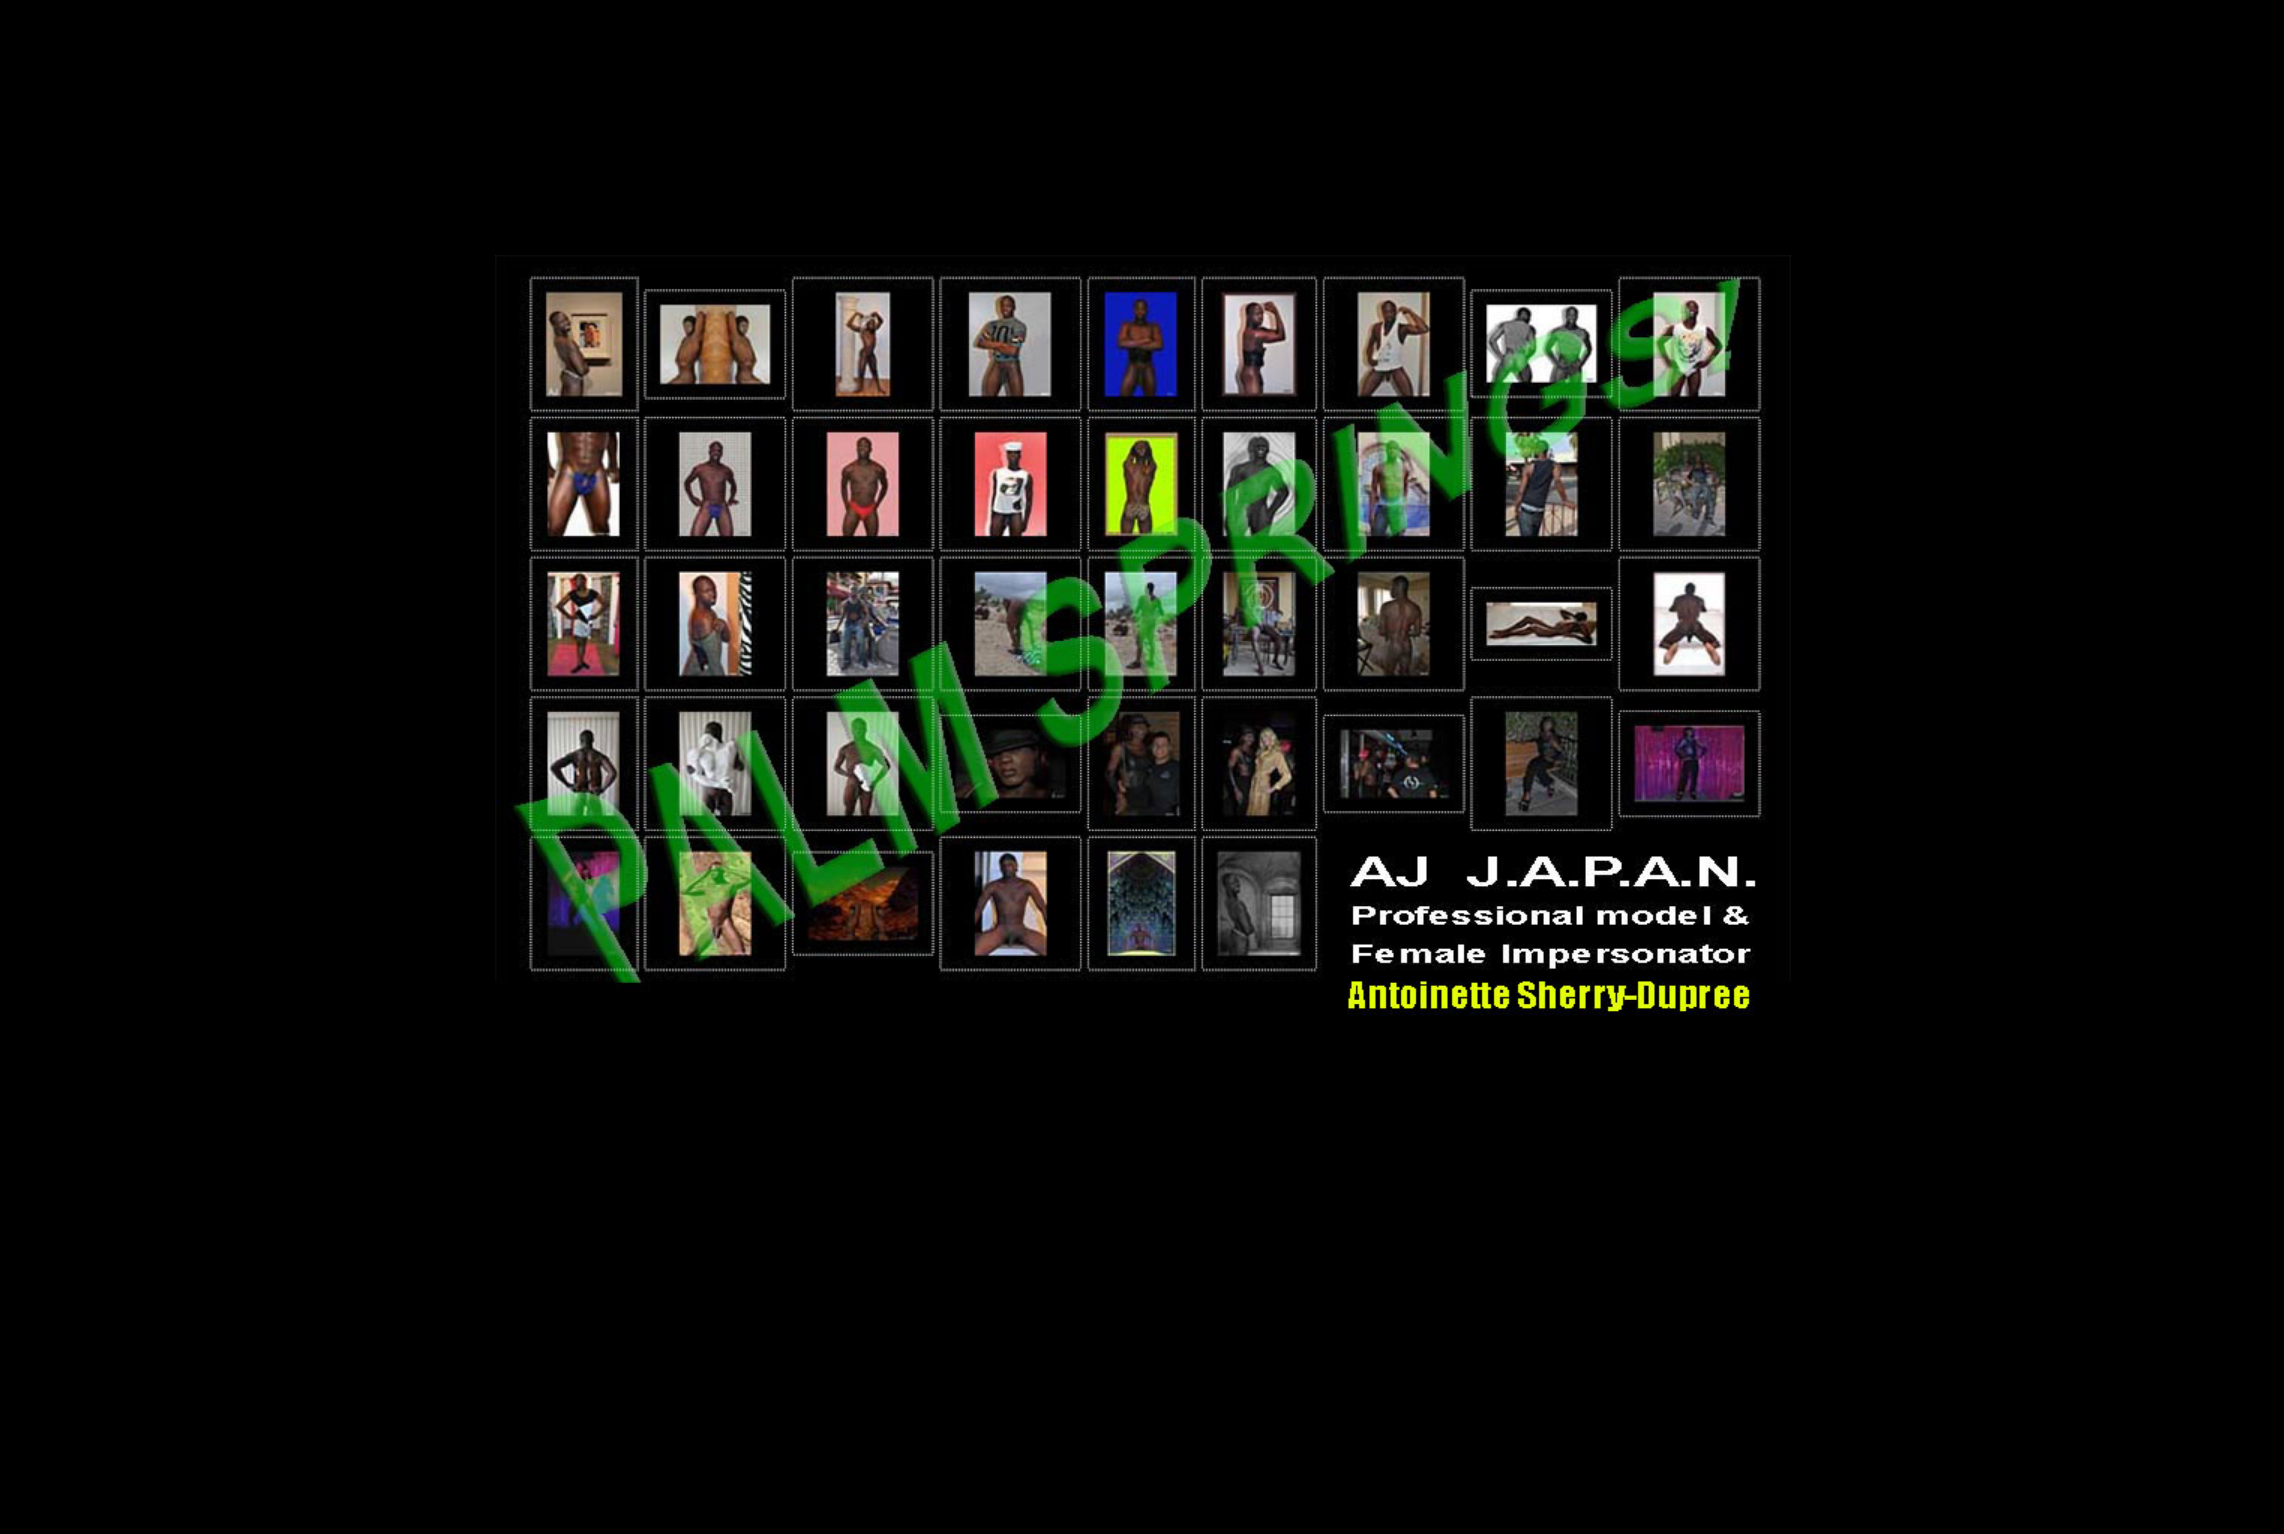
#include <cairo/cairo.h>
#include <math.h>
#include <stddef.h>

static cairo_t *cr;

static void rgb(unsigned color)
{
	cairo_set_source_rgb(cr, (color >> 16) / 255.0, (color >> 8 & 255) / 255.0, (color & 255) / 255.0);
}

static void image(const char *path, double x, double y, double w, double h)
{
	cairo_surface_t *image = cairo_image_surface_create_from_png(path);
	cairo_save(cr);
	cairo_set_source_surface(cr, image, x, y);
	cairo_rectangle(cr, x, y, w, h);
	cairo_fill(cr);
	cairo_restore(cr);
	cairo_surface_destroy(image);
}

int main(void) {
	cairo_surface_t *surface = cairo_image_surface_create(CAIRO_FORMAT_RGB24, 2284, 1534);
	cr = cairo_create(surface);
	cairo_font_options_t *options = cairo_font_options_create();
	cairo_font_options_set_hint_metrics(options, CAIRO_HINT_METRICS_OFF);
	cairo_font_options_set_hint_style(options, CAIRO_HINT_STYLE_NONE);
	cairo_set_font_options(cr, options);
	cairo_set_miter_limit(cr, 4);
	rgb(0x000000);
	cairo_paint(cr);
	image("img/1.png", 495, 255, 1296, 761);
	cairo_surface_write_to_png(surface, "page.png");
	cairo_font_options_destroy(options);
	cairo_destroy(cr);
	cairo_surface_destroy(surface);
	return 0;
}
